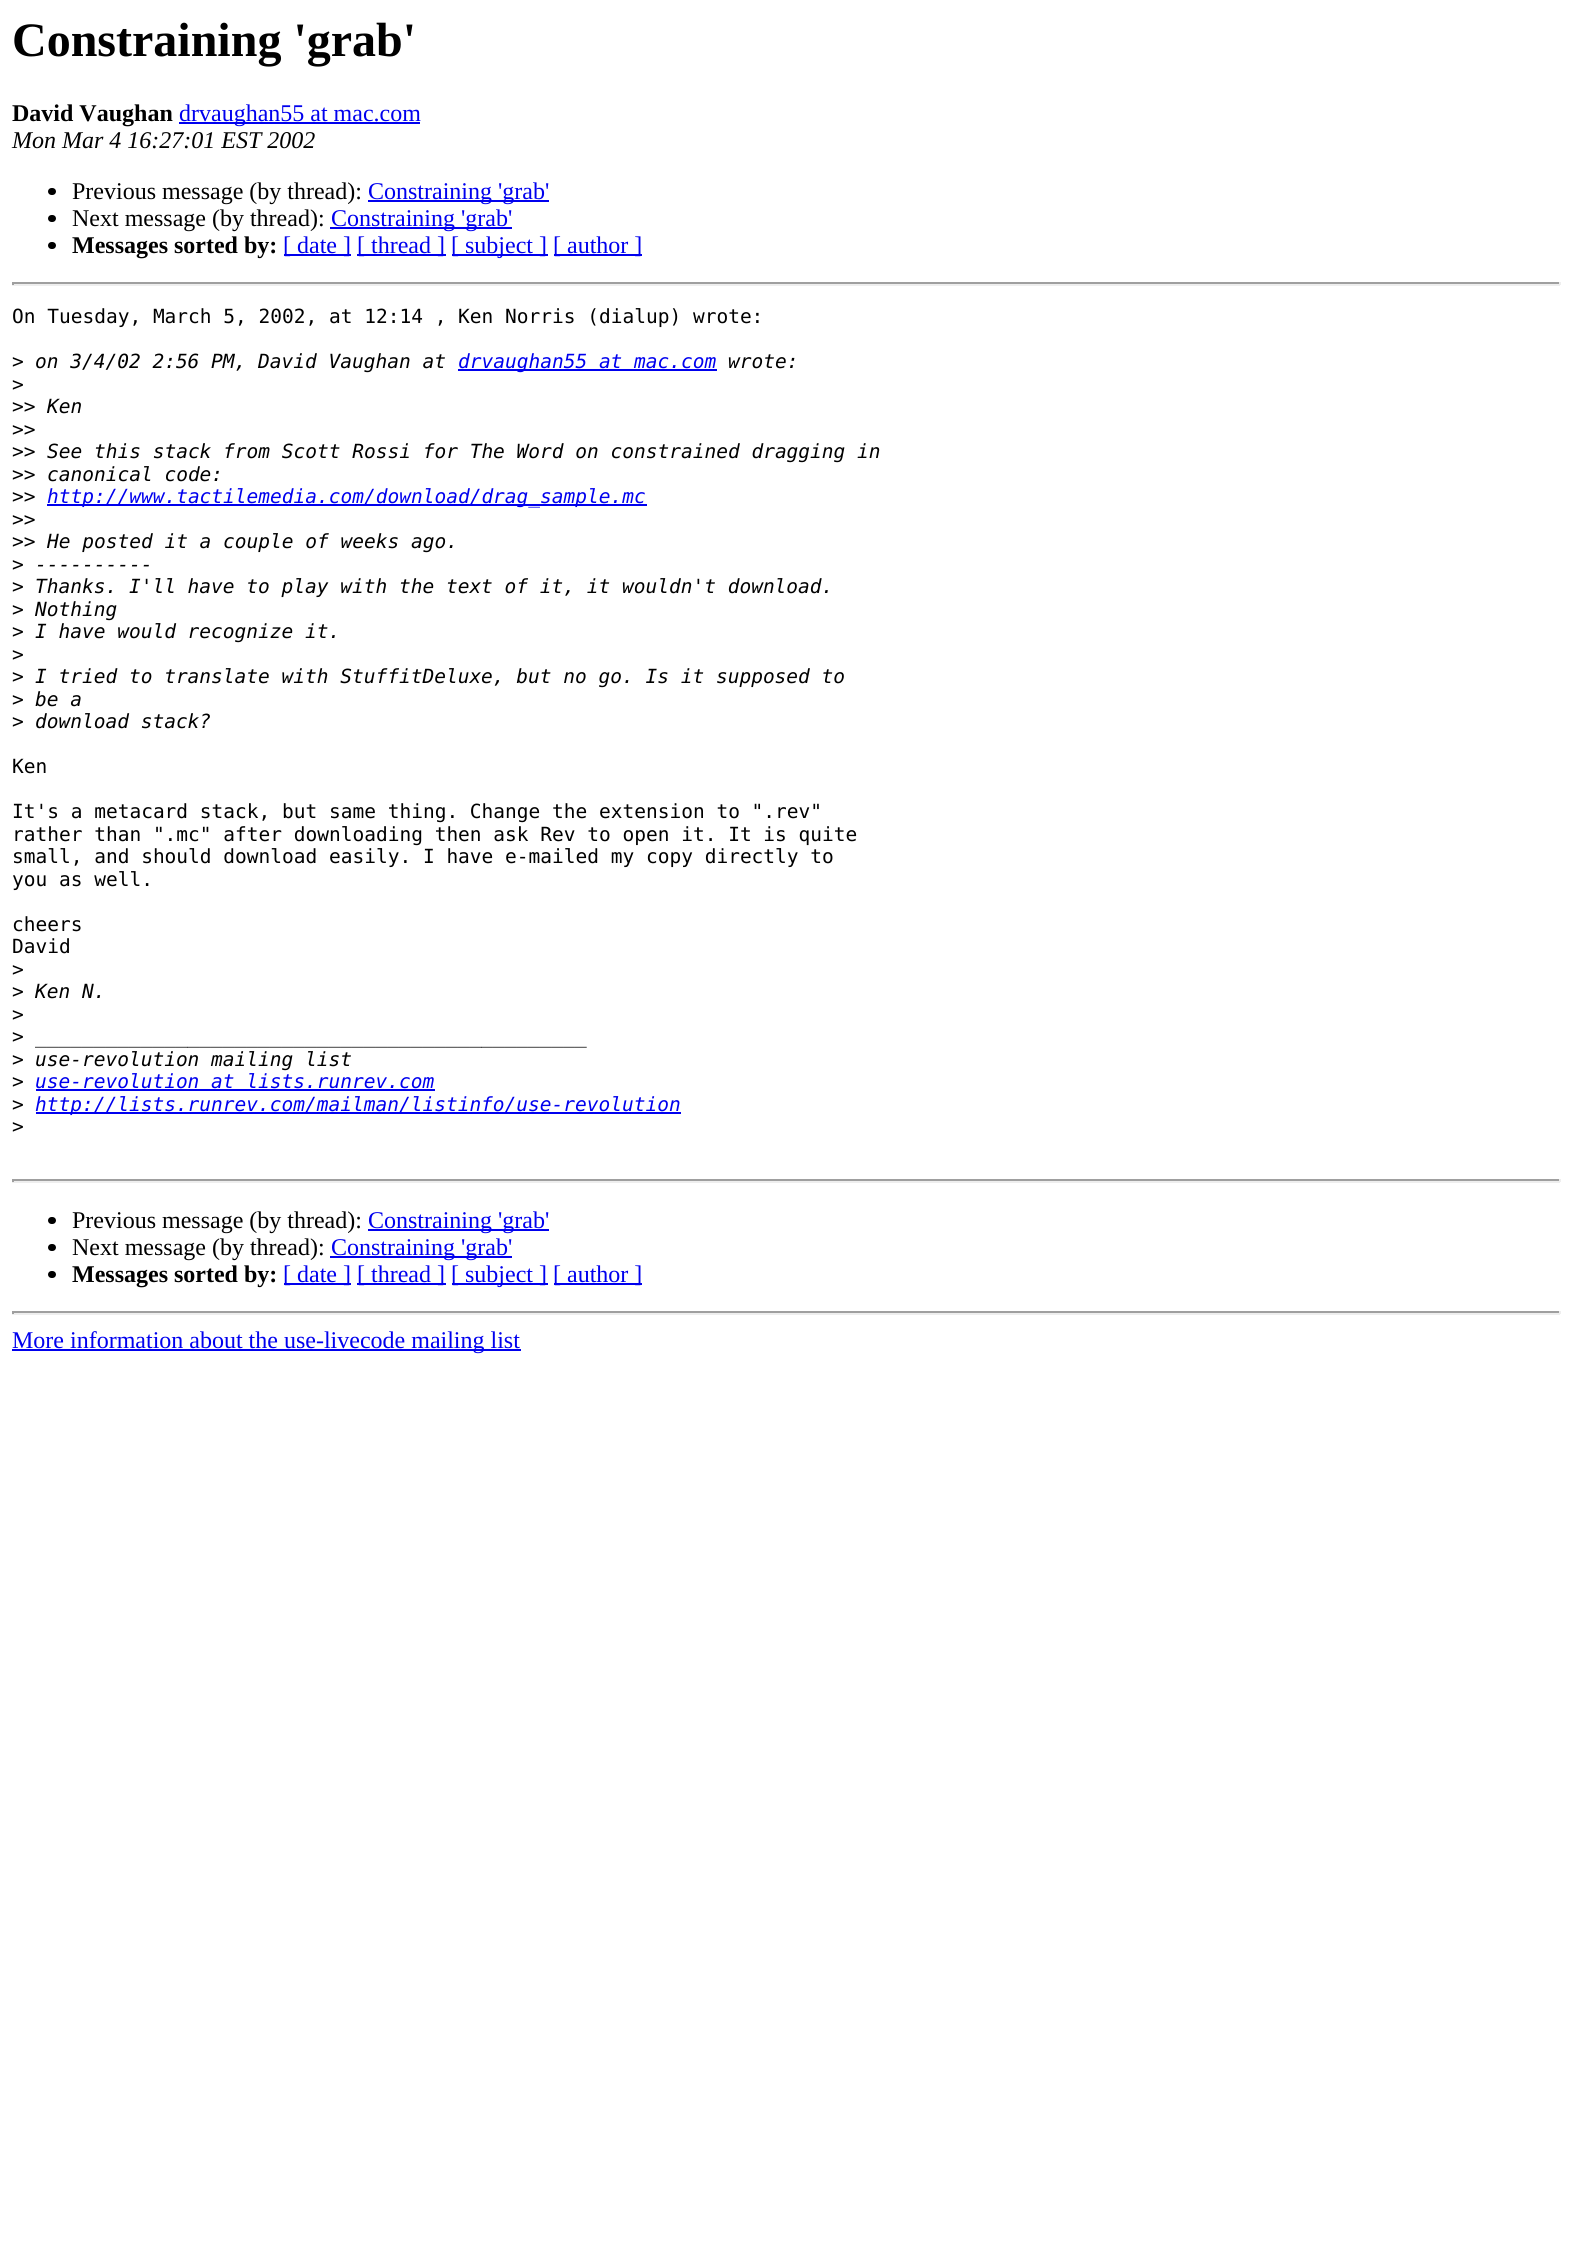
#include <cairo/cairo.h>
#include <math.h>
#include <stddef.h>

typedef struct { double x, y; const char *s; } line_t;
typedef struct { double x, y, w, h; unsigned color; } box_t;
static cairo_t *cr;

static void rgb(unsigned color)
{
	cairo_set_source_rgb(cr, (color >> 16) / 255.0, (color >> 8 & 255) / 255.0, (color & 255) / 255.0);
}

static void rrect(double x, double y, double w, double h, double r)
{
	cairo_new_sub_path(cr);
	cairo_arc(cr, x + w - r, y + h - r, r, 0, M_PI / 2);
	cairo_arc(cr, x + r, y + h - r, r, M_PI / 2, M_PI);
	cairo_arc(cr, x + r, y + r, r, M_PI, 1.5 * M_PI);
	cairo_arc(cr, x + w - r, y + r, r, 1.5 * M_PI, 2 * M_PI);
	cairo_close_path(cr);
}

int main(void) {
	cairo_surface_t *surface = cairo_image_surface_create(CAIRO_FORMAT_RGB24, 1572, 2243);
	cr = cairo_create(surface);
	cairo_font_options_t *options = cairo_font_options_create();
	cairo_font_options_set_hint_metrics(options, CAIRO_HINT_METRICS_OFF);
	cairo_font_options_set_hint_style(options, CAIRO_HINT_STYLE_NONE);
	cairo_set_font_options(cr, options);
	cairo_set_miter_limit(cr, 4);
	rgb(0xffffff);
	cairo_paint(cr);
	rgb(0x0000ee);
	cairo_rectangle(cr, 179, 122, 241, 2);
	cairo_fill(cr);
	rgb(0x000000);
	rrect(48, 188, 8, 7, 3.5);
	cairo_fill(cr);
	rgb(0x0000ee);
	cairo_rectangle(cr, 368, 200, 181, 2);
	cairo_fill(cr);
	rgb(0x000000);
	rrect(48, 215, 8, 7, 3.5);
	cairo_fill(cr);
	rgb(0x0000ee);
	cairo_rectangle(cr, 330, 227, 182, 2);
	cairo_fill(cr);
	rgb(0x000000);
	rrect(48, 242, 8, 7, 3.5);
	cairo_fill(cr);
	{
		static const box_t items[] = {
			{284, 254, 67, 2, 0x0000ee},
			{357, 254, 89, 2, 0x0000ee},
			{452, 254, 96, 2, 0x0000ee},
			{554, 254, 88, 2, 0x0000ee},
			{12, 282, 1548, 2, 0x9f9f9f},
			{1559, 282, 2, 3, 0xeeeeee},
			{12, 284, 1548, 2, 0xeeeeee},
			{12, 282, 2, 3, 0x9f9f9f},
			{458, 369, 259, 2, 0x0000ee},
			{47, 504, 600, 2, 0x0000ee},
			{36, 1089, 399, 2, 0x0000ee},
			{36, 1112, 645, 2, 0x0000ee},
			{12, 1179, 1548, 2, 0x9f9f9f},
			{1559, 1179, 2, 3, 0xeeeeee},
			{12, 1181, 1548, 2, 0xeeeeee},
			{12, 1179, 2, 3, 0x9f9f9f},
		};
		for (size_t i = 0; i < sizeof items / sizeof *items; i++) {
			rgb(items[i].color);
			cairo_rectangle(cr, items[i].x, items[i].y, items[i].w, items[i].h);
			cairo_fill(cr);
		}
	}
	rgb(0x000000);
	rrect(48, 1217, 8, 7, 3.5);
	cairo_fill(cr);
	rgb(0x0000ee);
	cairo_rectangle(cr, 368, 1229, 181, 2);
	cairo_fill(cr);
	rgb(0x000000);
	rrect(48, 1244, 8, 7, 3.5);
	cairo_fill(cr);
	rgb(0x0000ee);
	cairo_rectangle(cr, 330, 1256, 182, 2);
	cairo_fill(cr);
	rgb(0x000000);
	rrect(48, 1271, 8, 7, 3.5);
	cairo_fill(cr);
	{
		static const box_t items[] = {
			{284, 1283, 67, 2, 0x0000ee},
			{357, 1283, 89, 2, 0x0000ee},
			{452, 1283, 96, 2, 0x0000ee},
			{554, 1283, 88, 2, 0x0000ee},
			{12, 1311, 1548, 2, 0x9f9f9f},
			{1559, 1311, 2, 3, 0xeeeeee},
			{12, 1313, 1548, 2, 0xeeeeee},
			{12, 1311, 2, 3, 0x9f9f9f},
			{12, 1349, 509, 2, 0x0000ee},
		};
		for (size_t i = 0; i < sizeof items / sizeof *items; i++) {
			rgb(items[i].color);
			cairo_rectangle(cr, items[i].x, items[i].y, items[i].w, items[i].h);
			cairo_fill(cr);
		}
	}
	cairo_select_font_face(cr, "Liberation Serif", CAIRO_FONT_SLANT_NORMAL, CAIRO_FONT_WEIGHT_BOLD);
	cairo_set_font_size(cr, 48);
	rgb(0x000000);
	cairo_move_to(cr, 12, 56);
	cairo_show_text(cr, "Constraining 'grab'");
	cairo_set_font_size(cr, 24);
	cairo_move_to(cr, 12, 121);
	cairo_show_text(cr, "David Vaughan");
	cairo_select_font_face(cr, "Liberation Serif", CAIRO_FONT_SLANT_NORMAL, CAIRO_FONT_WEIGHT_NORMAL);
	rgb(0x0000ee);
	cairo_move_to(cr, 179, 121);
	cairo_show_text(cr, "drvaughan55 at mac.com");
	cairo_select_font_face(cr, "Liberation Serif", CAIRO_FONT_SLANT_ITALIC, CAIRO_FONT_WEIGHT_NORMAL);
	rgb(0x000000);
	cairo_move_to(cr, 12, 148);
	cairo_show_text(cr, "Mon Mar 4 16:27:01 EST 2002");
	cairo_select_font_face(cr, "Liberation Serif", CAIRO_FONT_SLANT_NORMAL, CAIRO_FONT_WEIGHT_NORMAL);
	cairo_move_to(cr, 72, 199);
	cairo_show_text(cr, "Previous message (by thread):");
	rgb(0x0000ee);
	cairo_move_to(cr, 368, 199);
	cairo_show_text(cr, "Constraining 'grab'");
	rgb(0x000000);
	cairo_move_to(cr, 72, 226);
	cairo_show_text(cr, "Next message (by thread):");
	rgb(0x0000ee);
	cairo_move_to(cr, 331, 226);
	cairo_show_text(cr, "Constraining 'grab'");
	cairo_select_font_face(cr, "Liberation Serif", CAIRO_FONT_SLANT_NORMAL, CAIRO_FONT_WEIGHT_BOLD);
	rgb(0x000000);
	cairo_move_to(cr, 72, 253);
	cairo_show_text(cr, "Messages sorted by:");
	cairo_select_font_face(cr, "Liberation Serif", CAIRO_FONT_SLANT_NORMAL, CAIRO_FONT_WEIGHT_NORMAL);
	rgb(0x0000ee);
	{
		static const line_t items[] = {
			{283, 253, "[ date ]"},
			{357, 253, "[ thread ]"},
			{451, 253, "[ subject ]"},
			{553, 253, "[ author ]"},
		};
		for (size_t i = 0; i < sizeof items / sizeof *items; i++) {
			cairo_move_to(cr, items[i].x, items[i].y);
			cairo_show_text(cr, items[i].s);
		}
	}
	cairo_select_font_face(cr, "DejaVu Sans Mono", CAIRO_FONT_SLANT_NORMAL, CAIRO_FONT_WEIGHT_NORMAL);
	cairo_set_font_size(cr, 19.5);
	rgb(0x000000);
	cairo_move_to(cr, 12, 323);
	cairo_show_text(cr, "On Tuesday, March 5, 2002, at 12:14 , Ken Norris (dialup) wrote:");
	cairo_move_to(cr, 12, 368);
	cairo_show_text(cr, ">");
	cairo_select_font_face(cr, "DejaVu Sans Mono", CAIRO_FONT_SLANT_ITALIC, CAIRO_FONT_WEIGHT_NORMAL);
	cairo_move_to(cr, 35, 368);
	cairo_show_text(cr, "on 3/4/02 2:56 PM, David Vaughan at");
	rgb(0x0000ee);
	cairo_move_to(cr, 458, 368);
	cairo_show_text(cr, "drvaughan55 at mac.com");
	rgb(0x000000);
	cairo_move_to(cr, 728, 368);
	cairo_show_text(cr, "wrote:");
	cairo_select_font_face(cr, "DejaVu Sans Mono", CAIRO_FONT_SLANT_NORMAL, CAIRO_FONT_WEIGHT_NORMAL);
	cairo_move_to(cr, 12, 391);
	cairo_show_text(cr, ">");
	cairo_move_to(cr, 12, 413);
	cairo_show_text(cr, ">>");
	cairo_select_font_face(cr, "DejaVu Sans Mono", CAIRO_FONT_SLANT_ITALIC, CAIRO_FONT_WEIGHT_NORMAL);
	cairo_move_to(cr, 47, 413);
	cairo_show_text(cr, "Ken");
	cairo_select_font_face(cr, "DejaVu Sans Mono", CAIRO_FONT_SLANT_NORMAL, CAIRO_FONT_WEIGHT_NORMAL);
	cairo_move_to(cr, 12, 436);
	cairo_show_text(cr, ">>");
	cairo_move_to(cr, 12, 458);
	cairo_show_text(cr, ">>");
	cairo_select_font_face(cr, "DejaVu Sans Mono", CAIRO_FONT_SLANT_ITALIC, CAIRO_FONT_WEIGHT_NORMAL);
	cairo_move_to(cr, 47, 458);
	cairo_show_text(cr, "See this stack from Scott Rossi for The Word on constrained dragging in");
	cairo_select_font_face(cr, "DejaVu Sans Mono", CAIRO_FONT_SLANT_NORMAL, CAIRO_FONT_WEIGHT_NORMAL);
	cairo_move_to(cr, 12, 481);
	cairo_show_text(cr, ">>");
	cairo_select_font_face(cr, "DejaVu Sans Mono", CAIRO_FONT_SLANT_ITALIC, CAIRO_FONT_WEIGHT_NORMAL);
	cairo_move_to(cr, 47, 481);
	cairo_show_text(cr, "canonical code:");
	cairo_select_font_face(cr, "DejaVu Sans Mono", CAIRO_FONT_SLANT_NORMAL, CAIRO_FONT_WEIGHT_NORMAL);
	cairo_move_to(cr, 12, 503);
	cairo_show_text(cr, ">>");
	cairo_select_font_face(cr, "DejaVu Sans Mono", CAIRO_FONT_SLANT_ITALIC, CAIRO_FONT_WEIGHT_NORMAL);
	rgb(0x0000ee);
	cairo_move_to(cr, 47, 503);
	cairo_show_text(cr, "http://www.tactilemedia.com/download/drag_sample.mc");
	cairo_select_font_face(cr, "DejaVu Sans Mono", CAIRO_FONT_SLANT_NORMAL, CAIRO_FONT_WEIGHT_NORMAL);
	rgb(0x000000);
	cairo_move_to(cr, 12, 526);
	cairo_show_text(cr, ">>");
	cairo_move_to(cr, 12, 548);
	cairo_show_text(cr, ">>");
	cairo_select_font_face(cr, "DejaVu Sans Mono", CAIRO_FONT_SLANT_ITALIC, CAIRO_FONT_WEIGHT_NORMAL);
	cairo_move_to(cr, 47, 548);
	cairo_show_text(cr, "He posted it a couple of weeks ago.");
	cairo_select_font_face(cr, "DejaVu Sans Mono", CAIRO_FONT_SLANT_NORMAL, CAIRO_FONT_WEIGHT_NORMAL);
	cairo_move_to(cr, 12, 571);
	cairo_show_text(cr, ">");
	cairo_select_font_face(cr, "DejaVu Sans Mono", CAIRO_FONT_SLANT_ITALIC, CAIRO_FONT_WEIGHT_NORMAL);
	cairo_move_to(cr, 35, 571);
	cairo_show_text(cr, "----------");
	cairo_select_font_face(cr, "DejaVu Sans Mono", CAIRO_FONT_SLANT_NORMAL, CAIRO_FONT_WEIGHT_NORMAL);
	cairo_move_to(cr, 12, 593);
	cairo_show_text(cr, ">");
	cairo_select_font_face(cr, "DejaVu Sans Mono", CAIRO_FONT_SLANT_ITALIC, CAIRO_FONT_WEIGHT_NORMAL);
	cairo_move_to(cr, 35, 593);
	cairo_show_text(cr, "Thanks. I'll have to play with the text of it, it wouldn't download.");
	cairo_select_font_face(cr, "DejaVu Sans Mono", CAIRO_FONT_SLANT_NORMAL, CAIRO_FONT_WEIGHT_NORMAL);
	cairo_move_to(cr, 12, 616);
	cairo_show_text(cr, ">");
	cairo_select_font_face(cr, "DejaVu Sans Mono", CAIRO_FONT_SLANT_ITALIC, CAIRO_FONT_WEIGHT_NORMAL);
	cairo_move_to(cr, 35, 616);
	cairo_show_text(cr, "Nothing");
	cairo_select_font_face(cr, "DejaVu Sans Mono", CAIRO_FONT_SLANT_NORMAL, CAIRO_FONT_WEIGHT_NORMAL);
	cairo_move_to(cr, 12, 638);
	cairo_show_text(cr, ">");
	cairo_select_font_face(cr, "DejaVu Sans Mono", CAIRO_FONT_SLANT_ITALIC, CAIRO_FONT_WEIGHT_NORMAL);
	cairo_move_to(cr, 35, 638);
	cairo_show_text(cr, "I have would recognize it.");
	cairo_select_font_face(cr, "DejaVu Sans Mono", CAIRO_FONT_SLANT_NORMAL, CAIRO_FONT_WEIGHT_NORMAL);
	cairo_move_to(cr, 12, 661);
	cairo_show_text(cr, ">");
	cairo_move_to(cr, 12, 683);
	cairo_show_text(cr, ">");
	cairo_select_font_face(cr, "DejaVu Sans Mono", CAIRO_FONT_SLANT_ITALIC, CAIRO_FONT_WEIGHT_NORMAL);
	cairo_move_to(cr, 35, 683);
	cairo_show_text(cr, "I tried to translate with StuffitDeluxe, but no go. Is it supposed to");
	cairo_select_font_face(cr, "DejaVu Sans Mono", CAIRO_FONT_SLANT_NORMAL, CAIRO_FONT_WEIGHT_NORMAL);
	cairo_move_to(cr, 12, 706);
	cairo_show_text(cr, ">");
	cairo_select_font_face(cr, "DejaVu Sans Mono", CAIRO_FONT_SLANT_ITALIC, CAIRO_FONT_WEIGHT_NORMAL);
	cairo_move_to(cr, 35, 706);
	cairo_show_text(cr, "be a");
	cairo_select_font_face(cr, "DejaVu Sans Mono", CAIRO_FONT_SLANT_NORMAL, CAIRO_FONT_WEIGHT_NORMAL);
	cairo_move_to(cr, 12, 728);
	cairo_show_text(cr, ">");
	cairo_select_font_face(cr, "DejaVu Sans Mono", CAIRO_FONT_SLANT_ITALIC, CAIRO_FONT_WEIGHT_NORMAL);
	cairo_move_to(cr, 35, 728);
	cairo_show_text(cr, "download stack?");
	cairo_select_font_face(cr, "DejaVu Sans Mono", CAIRO_FONT_SLANT_NORMAL, CAIRO_FONT_WEIGHT_NORMAL);
	{
		static const line_t items[] = {
			{12, 773, "Ken"},
			{12, 818, "It's a metacard stack, but same thing. Change the extension to \".rev\""},
			{12, 841, "rather than \".mc\" after downloading then ask Rev to open it. It is quite"},
			{12, 863, "small, and should download easily. I have e-mailed my copy directly to"},
			{12, 886, "you as well."},
			{12, 931, "cheers"},
			{12, 953, "David"},
			{12, 976, ">"},
			{12, 998, ">"},
		};
		for (size_t i = 0; i < sizeof items / sizeof *items; i++) {
			cairo_move_to(cr, items[i].x, items[i].y);
			cairo_show_text(cr, items[i].s);
		}
	}
	cairo_select_font_face(cr, "DejaVu Sans Mono", CAIRO_FONT_SLANT_ITALIC, CAIRO_FONT_WEIGHT_NORMAL);
	cairo_move_to(cr, 35, 998);
	cairo_show_text(cr, "Ken N.");
	cairo_select_font_face(cr, "DejaVu Sans Mono", CAIRO_FONT_SLANT_NORMAL, CAIRO_FONT_WEIGHT_NORMAL);
	cairo_move_to(cr, 12, 1021);
	cairo_show_text(cr, ">");
	cairo_move_to(cr, 12, 1043);
	cairo_show_text(cr, ">");
	cairo_select_font_face(cr, "DejaVu Sans Mono", CAIRO_FONT_SLANT_ITALIC, CAIRO_FONT_WEIGHT_NORMAL);
	cairo_move_to(cr, 35, 1043);
	cairo_show_text(cr, "_______________________________________________");
	cairo_select_font_face(cr, "DejaVu Sans Mono", CAIRO_FONT_SLANT_NORMAL, CAIRO_FONT_WEIGHT_NORMAL);
	cairo_move_to(cr, 12, 1066);
	cairo_show_text(cr, ">");
	cairo_select_font_face(cr, "DejaVu Sans Mono", CAIRO_FONT_SLANT_ITALIC, CAIRO_FONT_WEIGHT_NORMAL);
	cairo_move_to(cr, 35, 1066);
	cairo_show_text(cr, "use-revolution mailing list");
	cairo_select_font_face(cr, "DejaVu Sans Mono", CAIRO_FONT_SLANT_NORMAL, CAIRO_FONT_WEIGHT_NORMAL);
	cairo_move_to(cr, 12, 1088);
	cairo_show_text(cr, ">");
	cairo_select_font_face(cr, "DejaVu Sans Mono", CAIRO_FONT_SLANT_ITALIC, CAIRO_FONT_WEIGHT_NORMAL);
	rgb(0x0000ee);
	cairo_move_to(cr, 35, 1088);
	cairo_show_text(cr, "use-revolution at lists.runrev.com");
	cairo_select_font_face(cr, "DejaVu Sans Mono", CAIRO_FONT_SLANT_NORMAL, CAIRO_FONT_WEIGHT_NORMAL);
	rgb(0x000000);
	cairo_move_to(cr, 12, 1111);
	cairo_show_text(cr, ">");
	cairo_select_font_face(cr, "DejaVu Sans Mono", CAIRO_FONT_SLANT_ITALIC, CAIRO_FONT_WEIGHT_NORMAL);
	rgb(0x0000ee);
	cairo_move_to(cr, 35, 1111);
	cairo_show_text(cr, "http://lists.runrev.com/mailman/listinfo/use-revolution");
	cairo_select_font_face(cr, "DejaVu Sans Mono", CAIRO_FONT_SLANT_NORMAL, CAIRO_FONT_WEIGHT_NORMAL);
	rgb(0x000000);
	cairo_move_to(cr, 12, 1133);
	cairo_show_text(cr, ">");
	cairo_select_font_face(cr, "Liberation Serif", CAIRO_FONT_SLANT_NORMAL, CAIRO_FONT_WEIGHT_NORMAL);
	cairo_set_font_size(cr, 24);
	cairo_move_to(cr, 72, 1228);
	cairo_show_text(cr, "Previous message (by thread):");
	rgb(0x0000ee);
	cairo_move_to(cr, 368, 1228);
	cairo_show_text(cr, "Constraining 'grab'");
	rgb(0x000000);
	cairo_move_to(cr, 72, 1255);
	cairo_show_text(cr, "Next message (by thread):");
	rgb(0x0000ee);
	cairo_move_to(cr, 331, 1255);
	cairo_show_text(cr, "Constraining 'grab'");
	cairo_select_font_face(cr, "Liberation Serif", CAIRO_FONT_SLANT_NORMAL, CAIRO_FONT_WEIGHT_BOLD);
	rgb(0x000000);
	cairo_move_to(cr, 72, 1282);
	cairo_show_text(cr, "Messages sorted by:");
	cairo_select_font_face(cr, "Liberation Serif", CAIRO_FONT_SLANT_NORMAL, CAIRO_FONT_WEIGHT_NORMAL);
	rgb(0x0000ee);
	{
		static const line_t items[] = {
			{283, 1282, "[ date ]"},
			{357, 1282, "[ thread ]"},
			{451, 1282, "[ subject ]"},
			{553, 1282, "[ author ]"},
			{12, 1348, "More information about the use-livecode mailing list"},
		};
		for (size_t i = 0; i < sizeof items / sizeof *items; i++) {
			cairo_move_to(cr, items[i].x, items[i].y);
			cairo_show_text(cr, items[i].s);
		}
	}
	cairo_surface_write_to_png(surface, "page.png");
	cairo_font_options_destroy(options);
	cairo_destroy(cr);
	cairo_surface_destroy(surface);
	return 0;
}
